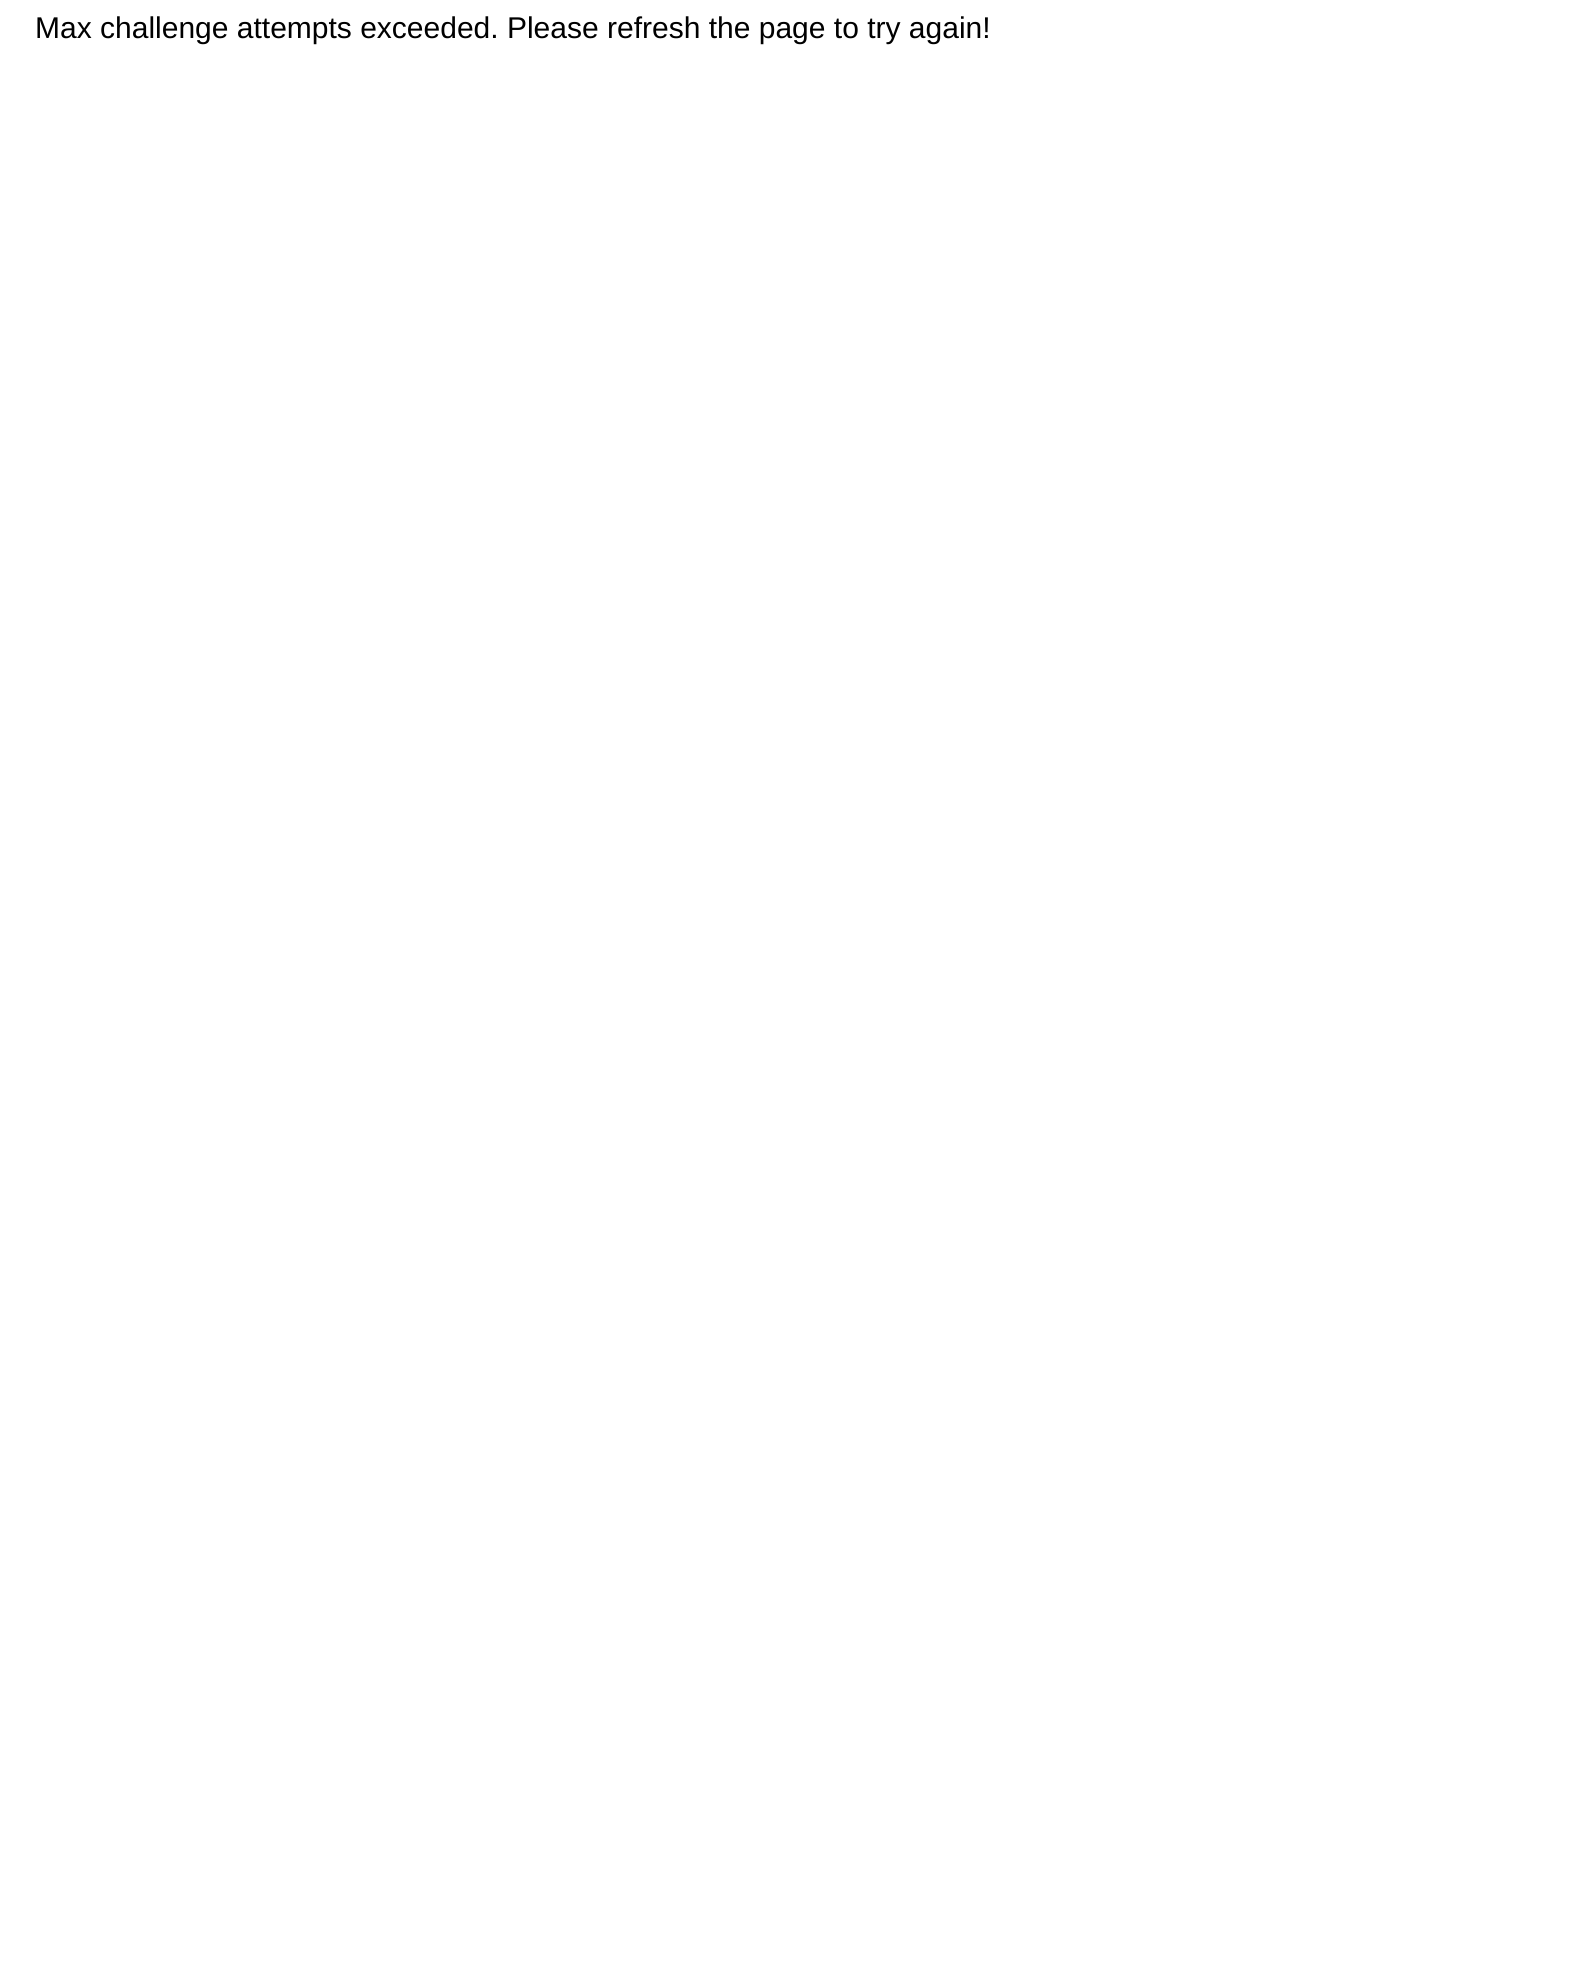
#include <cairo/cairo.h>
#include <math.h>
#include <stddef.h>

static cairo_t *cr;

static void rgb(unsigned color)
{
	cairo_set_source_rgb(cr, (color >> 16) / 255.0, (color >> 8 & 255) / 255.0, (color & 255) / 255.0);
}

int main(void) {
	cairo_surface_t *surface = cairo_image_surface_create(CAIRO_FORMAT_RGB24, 1572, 1986);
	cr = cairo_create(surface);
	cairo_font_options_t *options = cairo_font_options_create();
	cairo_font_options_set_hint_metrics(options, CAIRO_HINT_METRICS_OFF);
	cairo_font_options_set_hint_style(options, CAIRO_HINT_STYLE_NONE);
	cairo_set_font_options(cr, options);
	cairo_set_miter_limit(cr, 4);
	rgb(0xffffff);
	cairo_paint(cr);
	cairo_select_font_face(cr, "Liberation Sans", CAIRO_FONT_SLANT_NORMAL, CAIRO_FONT_WEIGHT_NORMAL);
	cairo_set_font_size(cr, 30);
	rgb(0x000000);
	cairo_move_to(cr, 35, 38);
	cairo_show_text(cr, "Max challenge attempts exceeded. Please refresh the page to try again!");
	cairo_surface_write_to_png(surface, "page.png");
	cairo_font_options_destroy(options);
	cairo_destroy(cr);
	cairo_surface_destroy(surface);
	return 0;
}
